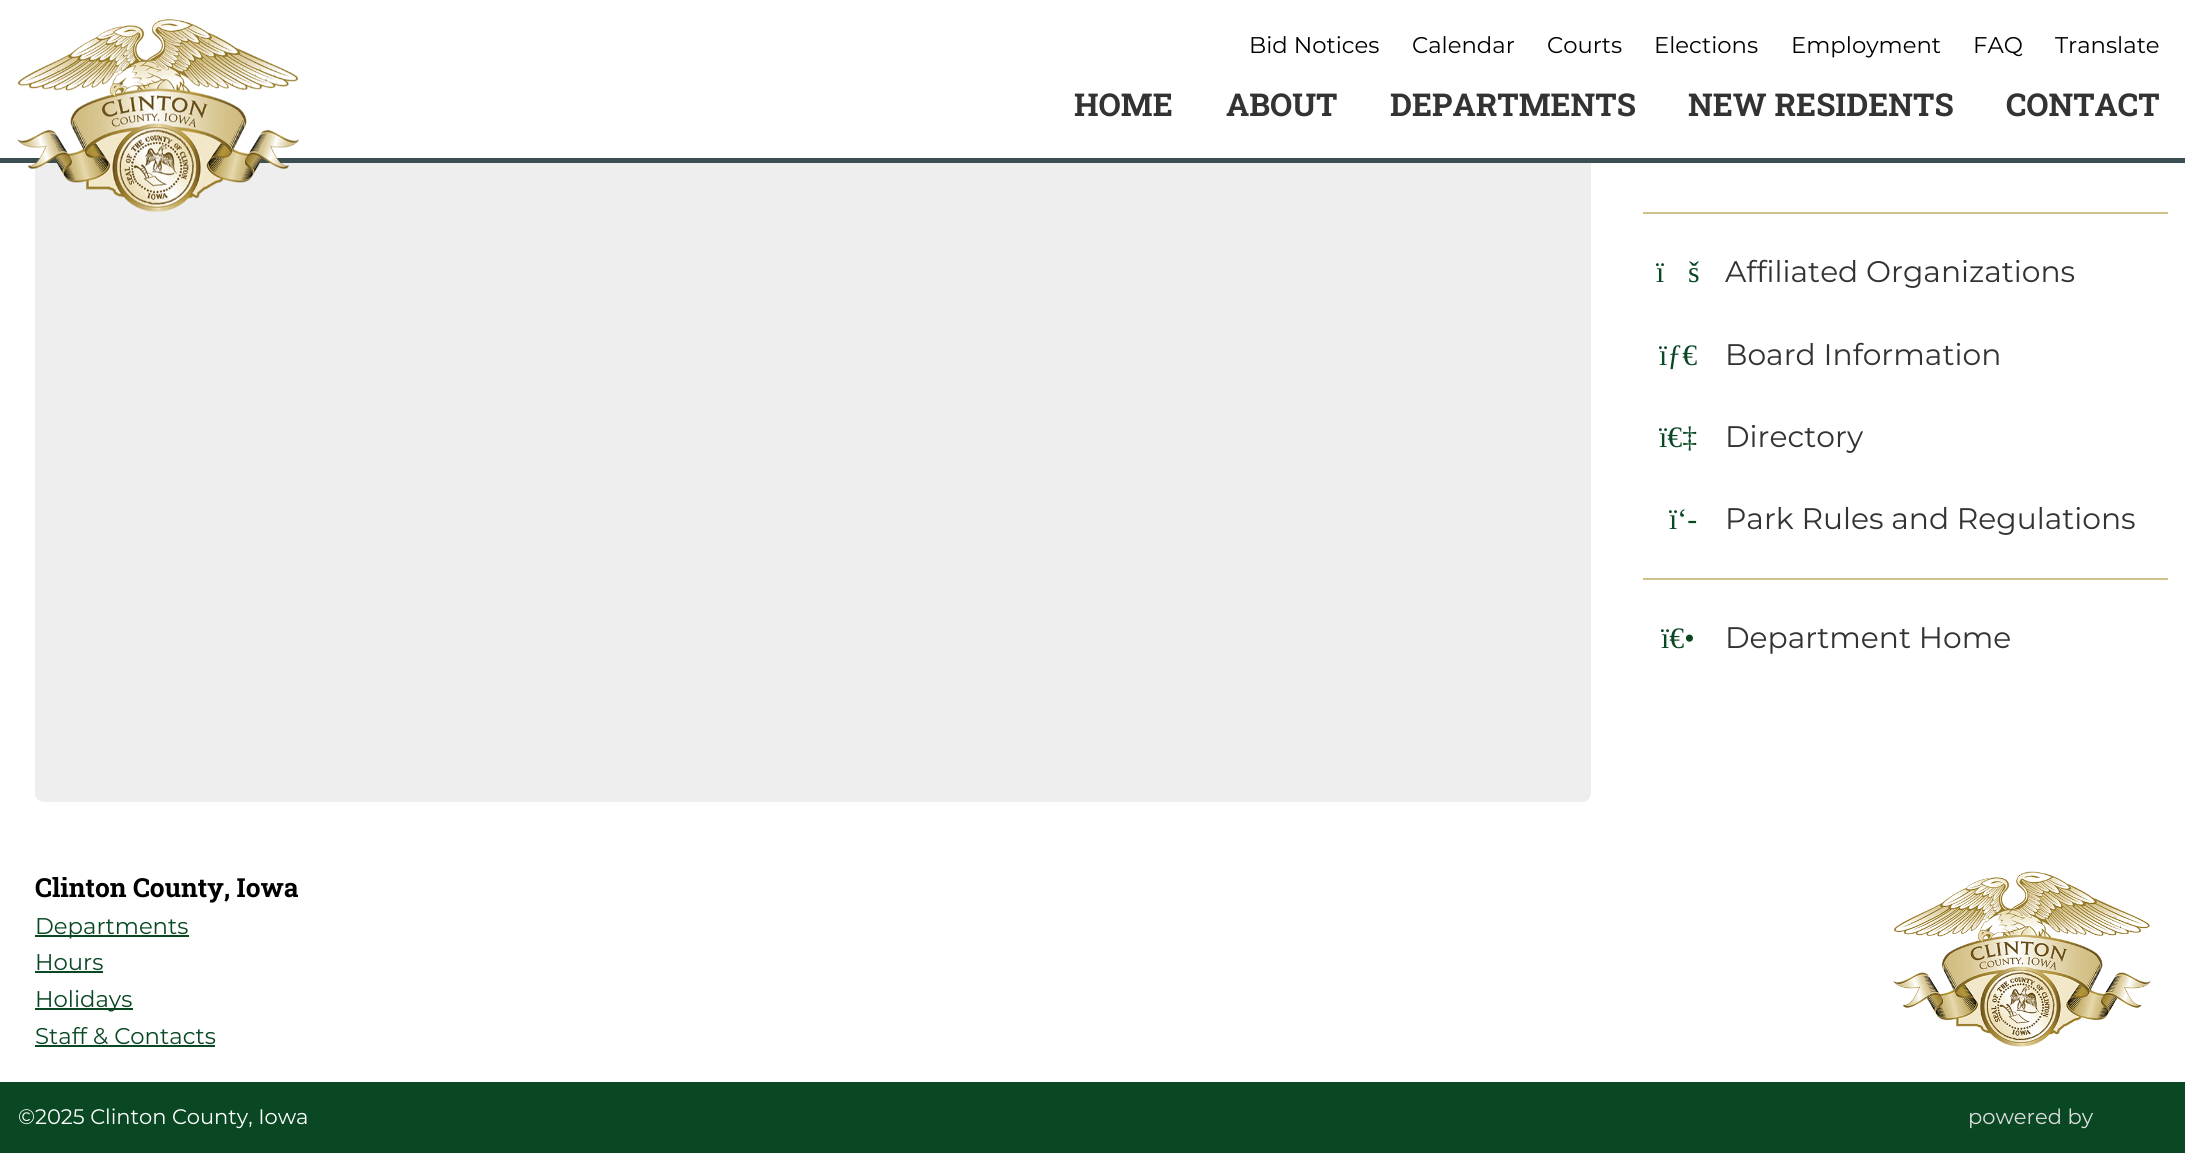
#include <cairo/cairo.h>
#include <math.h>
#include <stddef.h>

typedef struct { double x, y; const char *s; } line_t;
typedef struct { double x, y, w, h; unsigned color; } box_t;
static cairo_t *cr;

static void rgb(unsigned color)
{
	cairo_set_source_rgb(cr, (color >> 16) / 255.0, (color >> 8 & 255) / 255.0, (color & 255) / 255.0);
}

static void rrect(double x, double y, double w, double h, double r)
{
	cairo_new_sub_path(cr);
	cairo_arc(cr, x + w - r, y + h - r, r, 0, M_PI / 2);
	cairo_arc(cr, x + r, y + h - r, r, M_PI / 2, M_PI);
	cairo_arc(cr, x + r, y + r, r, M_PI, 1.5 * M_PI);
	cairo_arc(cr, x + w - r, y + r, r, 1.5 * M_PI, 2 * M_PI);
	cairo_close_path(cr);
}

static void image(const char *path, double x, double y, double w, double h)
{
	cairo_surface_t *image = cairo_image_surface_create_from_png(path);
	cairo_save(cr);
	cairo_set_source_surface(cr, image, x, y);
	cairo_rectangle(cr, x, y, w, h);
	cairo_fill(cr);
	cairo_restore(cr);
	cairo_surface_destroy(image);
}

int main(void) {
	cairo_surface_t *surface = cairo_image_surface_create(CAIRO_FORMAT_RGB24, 2185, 1153);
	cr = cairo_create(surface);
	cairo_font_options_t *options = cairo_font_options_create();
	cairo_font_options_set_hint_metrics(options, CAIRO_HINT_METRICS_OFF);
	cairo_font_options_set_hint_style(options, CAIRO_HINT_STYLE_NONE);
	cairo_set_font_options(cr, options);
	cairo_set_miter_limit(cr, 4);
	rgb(0xffffff);
	cairo_paint(cr);
	rgb(0xeeeeee);
	rrect(35, -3, 1556, 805, 9);
	cairo_fill(cr);
	rgb(0xffffff);
	cairo_rectangle(cr, 35, 0, 1556, 158);
	cairo_fill(cr);
	rgb(0x3b4e51);
	cairo_rectangle(cr, 0, 158, 2185, 5);
	cairo_fill(cr);
	image("img/1.png", 17, 19, 282, 193);
	{
		static const box_t items[] = {
			{1643, 212, 525, 2, 0xd0c08c},
			{1643, 578, 525, 2, 0xd0c08c},
			{35, 935, 154, 2, 0x094823},
			{35, 971, 68, 2, 0x094823},
			{35, 1008, 98, 2, 0x094823},
			{35, 1045, 180, 2, 0x094823},
		};
		for (size_t i = 0; i < sizeof items / sizeof *items; i++) {
			rgb(items[i].color);
			cairo_rectangle(cr, items[i].x, items[i].y, items[i].w, items[i].h);
			cairo_fill(cr);
		}
	}
	image("img/2.png", 1893, 871, 258, 176);
	cairo_rectangle(cr, 0, 1082, 2185, 71);
	cairo_fill(cr);
	cairo_select_font_face(cr, "Montserrat", CAIRO_FONT_SLANT_NORMAL, CAIRO_FONT_WEIGHT_NORMAL);
	cairo_set_font_size(cr, 22.75);
	rgb(0x000000);
	{
		static const line_t items[] = {
			{1249, 53, "Bid Notices"},
			{1412, 53, "Calendar"},
			{1547, 53, "Courts"},
			{1654, 53, "Elections"},
			{1791, 53, "Employment"},
			{1973, 53, "FAQ"},
			{2055, 53, "Translate"},
		};
		for (size_t i = 0; i < sizeof items / sizeof *items; i++) {
			cairo_move_to(cr, items[i].x, items[i].y);
			cairo_show_text(cr, items[i].s);
		}
	}
	cairo_select_font_face(cr, "Roboto Slab", CAIRO_FONT_SLANT_NORMAL, CAIRO_FONT_WEIGHT_BOLD);
	cairo_set_font_size(cr, 31.5);
	rgb(0x333333);
	{
		static const line_t items[] = {
			{1074, 116, "HOME"},
			{1226, 116, "ABOUT"},
			{1390, 116, "DEPARTMENTS"},
			{1688, 116, "NEW RESIDENTS"},
			{2006, 116, "CONTACT"},
		};
		for (size_t i = 0; i < sizeof items / sizeof *items; i++) {
			cairo_move_to(cr, items[i].x, items[i].y);
			cairo_show_text(cr, items[i].s);
		}
	}
	cairo_select_font_face(cr, "Liberation Serif", CAIRO_FONT_SLANT_NORMAL, CAIRO_FONT_WEIGHT_NORMAL);
	cairo_set_font_size(cr, 29.75);
	rgb(0x094823);
	cairo_move_to(cr, 1656, 282);
	cairo_show_text(cr, "ï");
	cairo_move_to(cr, 1688, 282);
	cairo_show_text(cr, "š");
	cairo_select_font_face(cr, "Montserrat", CAIRO_FONT_SLANT_NORMAL, CAIRO_FONT_WEIGHT_NORMAL);
	rgb(0x333333);
	cairo_move_to(cr, 1725, 282);
	cairo_show_text(cr, "Affiliated Organizations");
	cairo_select_font_face(cr, "Liberation Serif", CAIRO_FONT_SLANT_NORMAL, CAIRO_FONT_WEIGHT_NORMAL);
	rgb(0x094823);
	cairo_move_to(cr, 1659, 365);
	cairo_show_text(cr, "ïƒ€");
	cairo_select_font_face(cr, "Montserrat", CAIRO_FONT_SLANT_NORMAL, CAIRO_FONT_WEIGHT_NORMAL);
	rgb(0x333333);
	cairo_move_to(cr, 1725, 365);
	cairo_show_text(cr, "Board Information");
	cairo_select_font_face(cr, "Liberation Serif", CAIRO_FONT_SLANT_NORMAL, CAIRO_FONT_WEIGHT_NORMAL);
	rgb(0x094823);
	cairo_move_to(cr, 1659, 447);
	cairo_show_text(cr, "ï€‡");
	cairo_select_font_face(cr, "Montserrat", CAIRO_FONT_SLANT_NORMAL, CAIRO_FONT_WEIGHT_NORMAL);
	rgb(0x333333);
	cairo_move_to(cr, 1725, 447);
	cairo_show_text(cr, "Directory");
	cairo_select_font_face(cr, "Liberation Serif", CAIRO_FONT_SLANT_NORMAL, CAIRO_FONT_WEIGHT_NORMAL);
	rgb(0x094823);
	cairo_move_to(cr, 1669, 529);
	cairo_show_text(cr, "ï‘-");
	cairo_select_font_face(cr, "Montserrat", CAIRO_FONT_SLANT_NORMAL, CAIRO_FONT_WEIGHT_NORMAL);
	rgb(0x333333);
	cairo_move_to(cr, 1725, 529);
	cairo_show_text(cr, "Park Rules and Regulations");
	cairo_select_font_face(cr, "Liberation Serif", CAIRO_FONT_SLANT_NORMAL, CAIRO_FONT_WEIGHT_NORMAL);
	rgb(0x094823);
	cairo_move_to(cr, 1661, 648);
	cairo_show_text(cr, "ï€•");
	cairo_select_font_face(cr, "Montserrat", CAIRO_FONT_SLANT_NORMAL, CAIRO_FONT_WEIGHT_NORMAL);
	rgb(0x333333);
	cairo_move_to(cr, 1725, 648);
	cairo_show_text(cr, "Department Home");
	cairo_select_font_face(cr, "Roboto Slab", CAIRO_FONT_SLANT_NORMAL, CAIRO_FONT_WEIGHT_BOLD);
	cairo_set_font_size(cr, 26.25);
	rgb(0x000000);
	cairo_move_to(cr, 35, 897);
	cairo_show_text(cr, "Clinton County, Iowa");
	cairo_select_font_face(cr, "Montserrat", CAIRO_FONT_SLANT_NORMAL, CAIRO_FONT_WEIGHT_NORMAL);
	cairo_set_font_size(cr, 22.75);
	rgb(0x094823);
	{
		static const line_t items[] = {
			{35, 934, "Departments"},
			{35, 970, "Hours"},
			{35, 1007, "Holidays"},
			{35, 1044, "Staff & Contacts"},
		};
		for (size_t i = 0; i < sizeof items / sizeof *items; i++) {
			cairo_move_to(cr, items[i].x, items[i].y);
			cairo_show_text(cr, items[i].s);
		}
	}
	cairo_set_font_size(cr, 21);
	rgb(0xffffff);
	cairo_move_to(cr, 18, 1124);
	cairo_show_text(cr, "©2025 Clinton County, Iowa");
	rgb(0xdddddd);
	cairo_move_to(cr, 1968, 1124);
	cairo_show_text(cr, "powered by");
	cairo_surface_write_to_png(surface, "page.png");
	cairo_font_options_destroy(options);
	cairo_destroy(cr);
	cairo_surface_destroy(surface);
	return 0;
}
